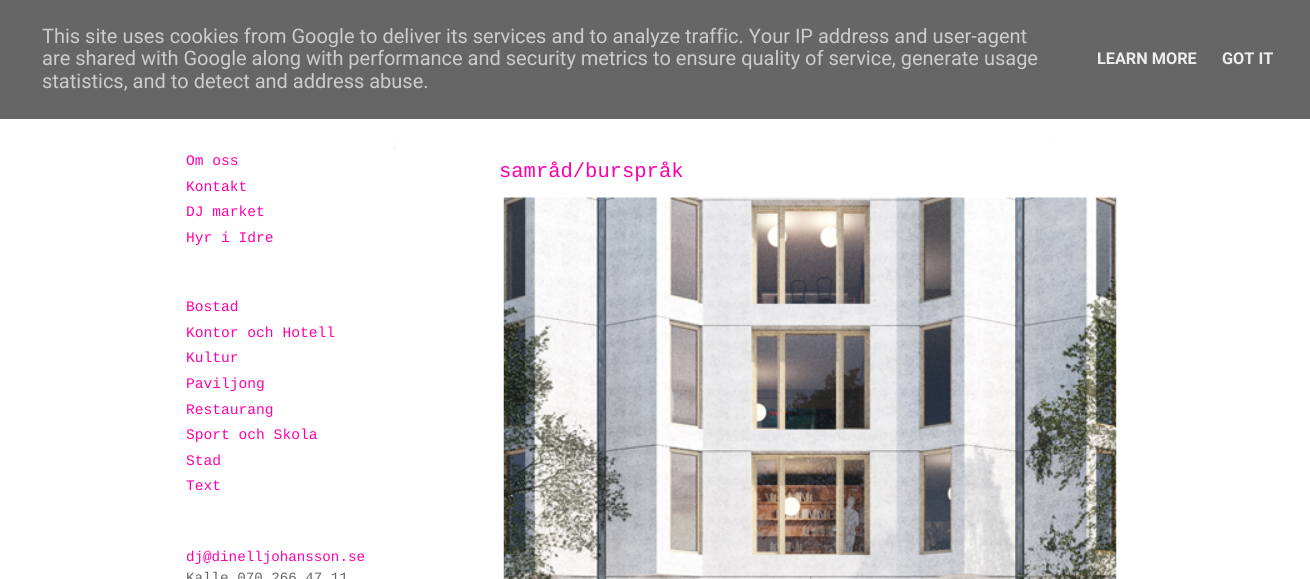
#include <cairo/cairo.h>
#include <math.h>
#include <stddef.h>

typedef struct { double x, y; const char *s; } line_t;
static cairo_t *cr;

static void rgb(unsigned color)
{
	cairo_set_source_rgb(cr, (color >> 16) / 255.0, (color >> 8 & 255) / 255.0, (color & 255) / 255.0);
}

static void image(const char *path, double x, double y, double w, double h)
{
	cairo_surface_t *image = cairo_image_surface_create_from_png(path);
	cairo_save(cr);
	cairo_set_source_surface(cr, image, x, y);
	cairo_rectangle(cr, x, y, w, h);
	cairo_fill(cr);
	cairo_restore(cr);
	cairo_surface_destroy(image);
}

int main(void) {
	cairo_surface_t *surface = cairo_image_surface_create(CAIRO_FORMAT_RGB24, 1310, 579);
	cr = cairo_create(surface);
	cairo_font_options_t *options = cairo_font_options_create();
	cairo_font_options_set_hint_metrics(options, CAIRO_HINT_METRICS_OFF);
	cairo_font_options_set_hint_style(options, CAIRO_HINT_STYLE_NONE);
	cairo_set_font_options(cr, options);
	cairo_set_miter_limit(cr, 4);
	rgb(0xffffff);
	cairo_paint(cr);
	rgb(0x666666);
	cairo_rectangle(cr, 0, 0, 1310, 119);
	cairo_fill(cr);
	image("img/1.png", 242, 119, 936, 30);
	image("img/2.png", 503, 197, 614, 382);
	cairo_select_font_face(cr, "Roboto", CAIRO_FONT_SLANT_NORMAL, CAIRO_FONT_WEIGHT_NORMAL);
	cairo_set_font_size(cr, 20);
	rgb(0xcccccc);
	{
		static const line_t items[] = {
			{42, 43, "This site uses cookies from Google to deliver its services and to analyze traffic. Your IP address and user-agent"},
			{42, 65, "are shared with Google along with performance and security metrics to ensure quality of service, generate usage"},
			{42, 88, "statistics, and to detect and address abuse."},
		};
		for (size_t i = 0; i < sizeof items / sizeof *items; i++) {
			cairo_move_to(cr, items[i].x, items[i].y);
			cairo_show_text(cr, items[i].s);
		}
	}
	cairo_select_font_face(cr, "Roboto", CAIRO_FONT_SLANT_NORMAL, CAIRO_FONT_WEIGHT_BOLD);
	cairo_set_font_size(cr, 16.25);
	rgb(0xeeeeee);
	cairo_move_to(cr, 1097, 64);
	cairo_show_text(cr, "LEARN MORE");
	cairo_move_to(cr, 1222, 64);
	cairo_show_text(cr, "GOT IT");
	cairo_select_font_face(cr, "Liberation Mono", CAIRO_FONT_SLANT_NORMAL, CAIRO_FONT_WEIGHT_NORMAL);
	cairo_set_font_size(cr, 14.6);
	rgb(0xff00aa);
	{
		static const line_t items[] = {
			{186, 165, "Om oss"},
			{186, 191, "Kontakt"},
			{186, 216, "DJ market"},
			{186, 242, "Hyr i Idre"},
			{186, 311, "Bostad"},
			{186, 337, "Kontor och Hotell"},
			{186, 362, "Kultur"},
			{186, 388, "Paviljong"},
			{186, 414, "Restaurang"},
			{186, 439, "Sport och Skola"},
			{186, 465, "Stad"},
			{186, 490, "Text"},
		};
		for (size_t i = 0; i < sizeof items / sizeof *items; i++) {
			cairo_move_to(cr, items[i].x, items[i].y);
			cairo_show_text(cr, items[i].s);
		}
	}
	cairo_set_font_size(cr, 14.2);
	cairo_move_to(cr, 186, 561);
	cairo_show_text(cr, "dj@dinelljohansson.se");
	rgb(0x666666);
	cairo_move_to(cr, 186, 582);
	cairo_show_text(cr, "Kalle 070 266 47 11");
	cairo_set_font_size(cr, 20.5);
	rgb(0xff00aa);
	cairo_move_to(cr, 499, 177);
	cairo_show_text(cr, "samråd/burspråk");
	cairo_surface_write_to_png(surface, "page.png");
	cairo_font_options_destroy(options);
	cairo_destroy(cr);
	cairo_surface_destroy(surface);
	return 0;
}
